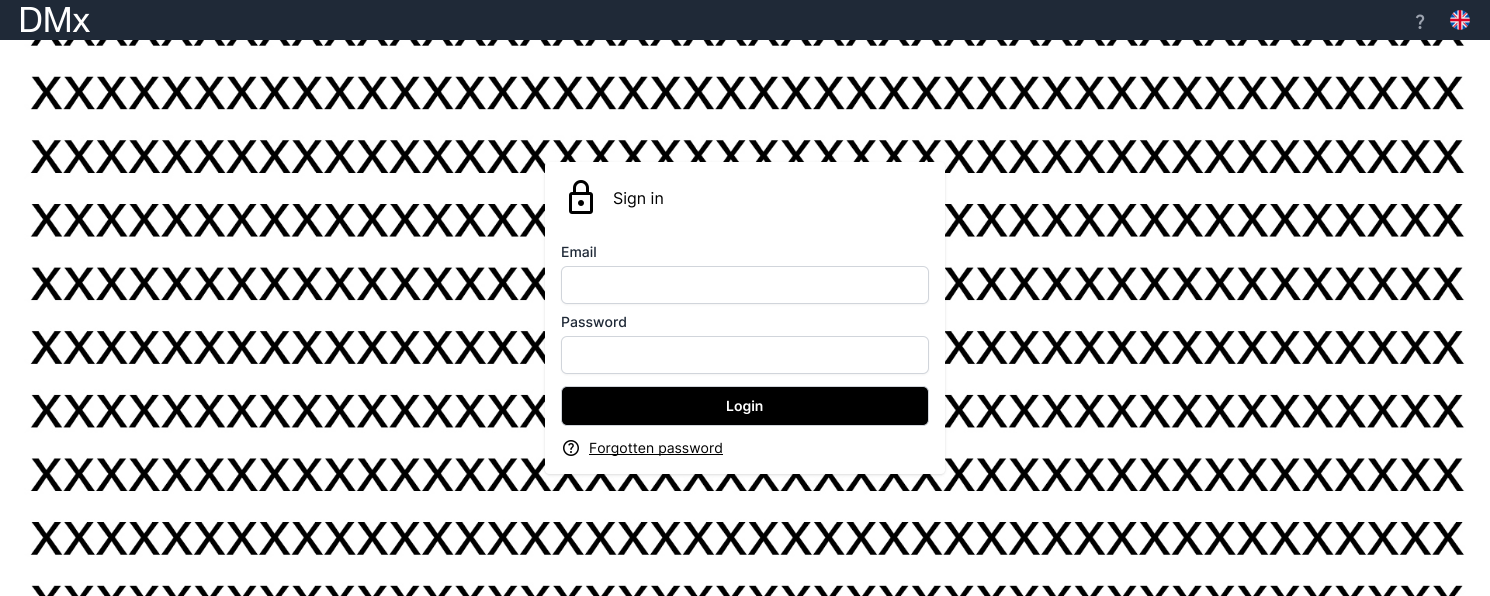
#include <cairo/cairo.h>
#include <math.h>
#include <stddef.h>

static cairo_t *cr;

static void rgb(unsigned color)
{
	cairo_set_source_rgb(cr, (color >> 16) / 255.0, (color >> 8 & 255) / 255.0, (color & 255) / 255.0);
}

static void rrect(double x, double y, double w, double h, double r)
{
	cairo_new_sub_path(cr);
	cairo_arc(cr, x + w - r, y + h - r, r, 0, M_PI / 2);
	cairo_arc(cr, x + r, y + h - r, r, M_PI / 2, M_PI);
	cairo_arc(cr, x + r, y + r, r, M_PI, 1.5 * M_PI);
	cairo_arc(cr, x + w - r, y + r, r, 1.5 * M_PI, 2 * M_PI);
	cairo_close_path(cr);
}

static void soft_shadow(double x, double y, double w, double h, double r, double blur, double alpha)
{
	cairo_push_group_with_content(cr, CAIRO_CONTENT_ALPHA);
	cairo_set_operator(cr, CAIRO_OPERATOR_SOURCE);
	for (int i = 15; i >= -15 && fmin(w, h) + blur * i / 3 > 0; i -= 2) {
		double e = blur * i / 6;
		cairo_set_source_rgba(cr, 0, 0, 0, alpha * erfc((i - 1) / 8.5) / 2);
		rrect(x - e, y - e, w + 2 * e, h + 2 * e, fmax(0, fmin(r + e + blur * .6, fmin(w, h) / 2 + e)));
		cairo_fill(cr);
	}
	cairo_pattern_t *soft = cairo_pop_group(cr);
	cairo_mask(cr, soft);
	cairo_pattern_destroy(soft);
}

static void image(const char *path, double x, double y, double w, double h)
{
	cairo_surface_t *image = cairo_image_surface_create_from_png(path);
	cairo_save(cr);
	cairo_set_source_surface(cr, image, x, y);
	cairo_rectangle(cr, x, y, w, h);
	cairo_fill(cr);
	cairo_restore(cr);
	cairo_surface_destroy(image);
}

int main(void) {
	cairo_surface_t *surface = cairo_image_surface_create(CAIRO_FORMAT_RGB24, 1490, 596);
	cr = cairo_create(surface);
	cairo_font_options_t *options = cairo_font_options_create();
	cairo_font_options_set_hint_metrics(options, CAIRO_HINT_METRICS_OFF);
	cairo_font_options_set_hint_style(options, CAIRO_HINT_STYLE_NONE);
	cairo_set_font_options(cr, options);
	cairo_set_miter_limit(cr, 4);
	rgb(0xffffff);
	cairo_paint(cr);
	rgb(0x1f2937);
	cairo_rectangle(cr, 0, 0, 1490, 40);
	cairo_fill(cr);
	image("img/1.png", 21, 7, 69, 25);
	image("img/2.png", 1415, 14, 10, 15);
	image("img/3.png", 1450, 10, 20, 20);
	image("img/4.png", 0, 40, 1490, 556);
	rgb(0x000000);
	soft_shadow(546, 164, 398, 310, 3, 1, 0.1);
	soft_shadow(545, 163, 400, 312, 4, 1.5, 0.1);
	rgb(0xffffff);
	rrect(545, 162, 400, 312, 4);
	cairo_fill(cr);
	image("img/5.png", 569, 180, 24, 34);
	rgb(0x000000);
	soft_shadow(561, 267, 368, 38, 6, 1, 0.05);
	rgb(0xffffff);
	rrect(561.5, 266.5, 367, 37, 5.5);
	cairo_fill_preserve(cr);
	rgb(0xd1d5db);
	cairo_set_line_width(cr, 1);
	cairo_stroke(cr);
	rgb(0x000000);
	soft_shadow(561, 337, 368, 38, 6, 1, 0.05);
	rgb(0xffffff);
	rrect(561.5, 336.5, 367, 37, 5.5);
	cairo_fill_preserve(cr);
	rgb(0xd1d5db);
	cairo_stroke(cr);
	rgb(0x000000);
	rrect(561.5, 386.5, 367, 39, 5.5);
	cairo_fill_preserve(cr);
	rgb(0xd1d5db);
	cairo_stroke(cr);
	image("img/6.png", 563, 440, 16, 16);
	rgb(0x000000);
	cairo_rectangle(cr, 589, 454, 134, 1);
	cairo_fill(cr);
	cairo_select_font_face(cr, "Inter", CAIRO_FONT_SLANT_NORMAL, CAIRO_FONT_WEIGHT_NORMAL);
	cairo_set_font_size(cr, 16);
	cairo_move_to(cr, 613, 204);
	cairo_show_text(cr, "Sign in");
	cairo_select_font_face(cr, "Inter Medium", CAIRO_FONT_SLANT_NORMAL, CAIRO_FONT_WEIGHT_NORMAL);
	cairo_set_font_size(cr, 14);
	rgb(0x1f2937);
	cairo_move_to(cr, 561, 257);
	cairo_show_text(cr, "Email");
	cairo_move_to(cr, 561, 327);
	cairo_show_text(cr, "Password");
	cairo_select_font_face(cr, "Inter SemiBold", CAIRO_FONT_SLANT_NORMAL, CAIRO_FONT_WEIGHT_NORMAL);
	rgb(0xffffff);
	cairo_move_to(cr, 726, 411);
	cairo_show_text(cr, "Login");
	cairo_select_font_face(cr, "Inter", CAIRO_FONT_SLANT_NORMAL, CAIRO_FONT_WEIGHT_NORMAL);
	rgb(0x000000);
	cairo_move_to(cr, 589, 453);
	cairo_show_text(cr, "Forgotten password");
	cairo_surface_write_to_png(surface, "page.png");
	cairo_font_options_destroy(options);
	cairo_destroy(cr);
	cairo_surface_destroy(surface);
	return 0;
}
